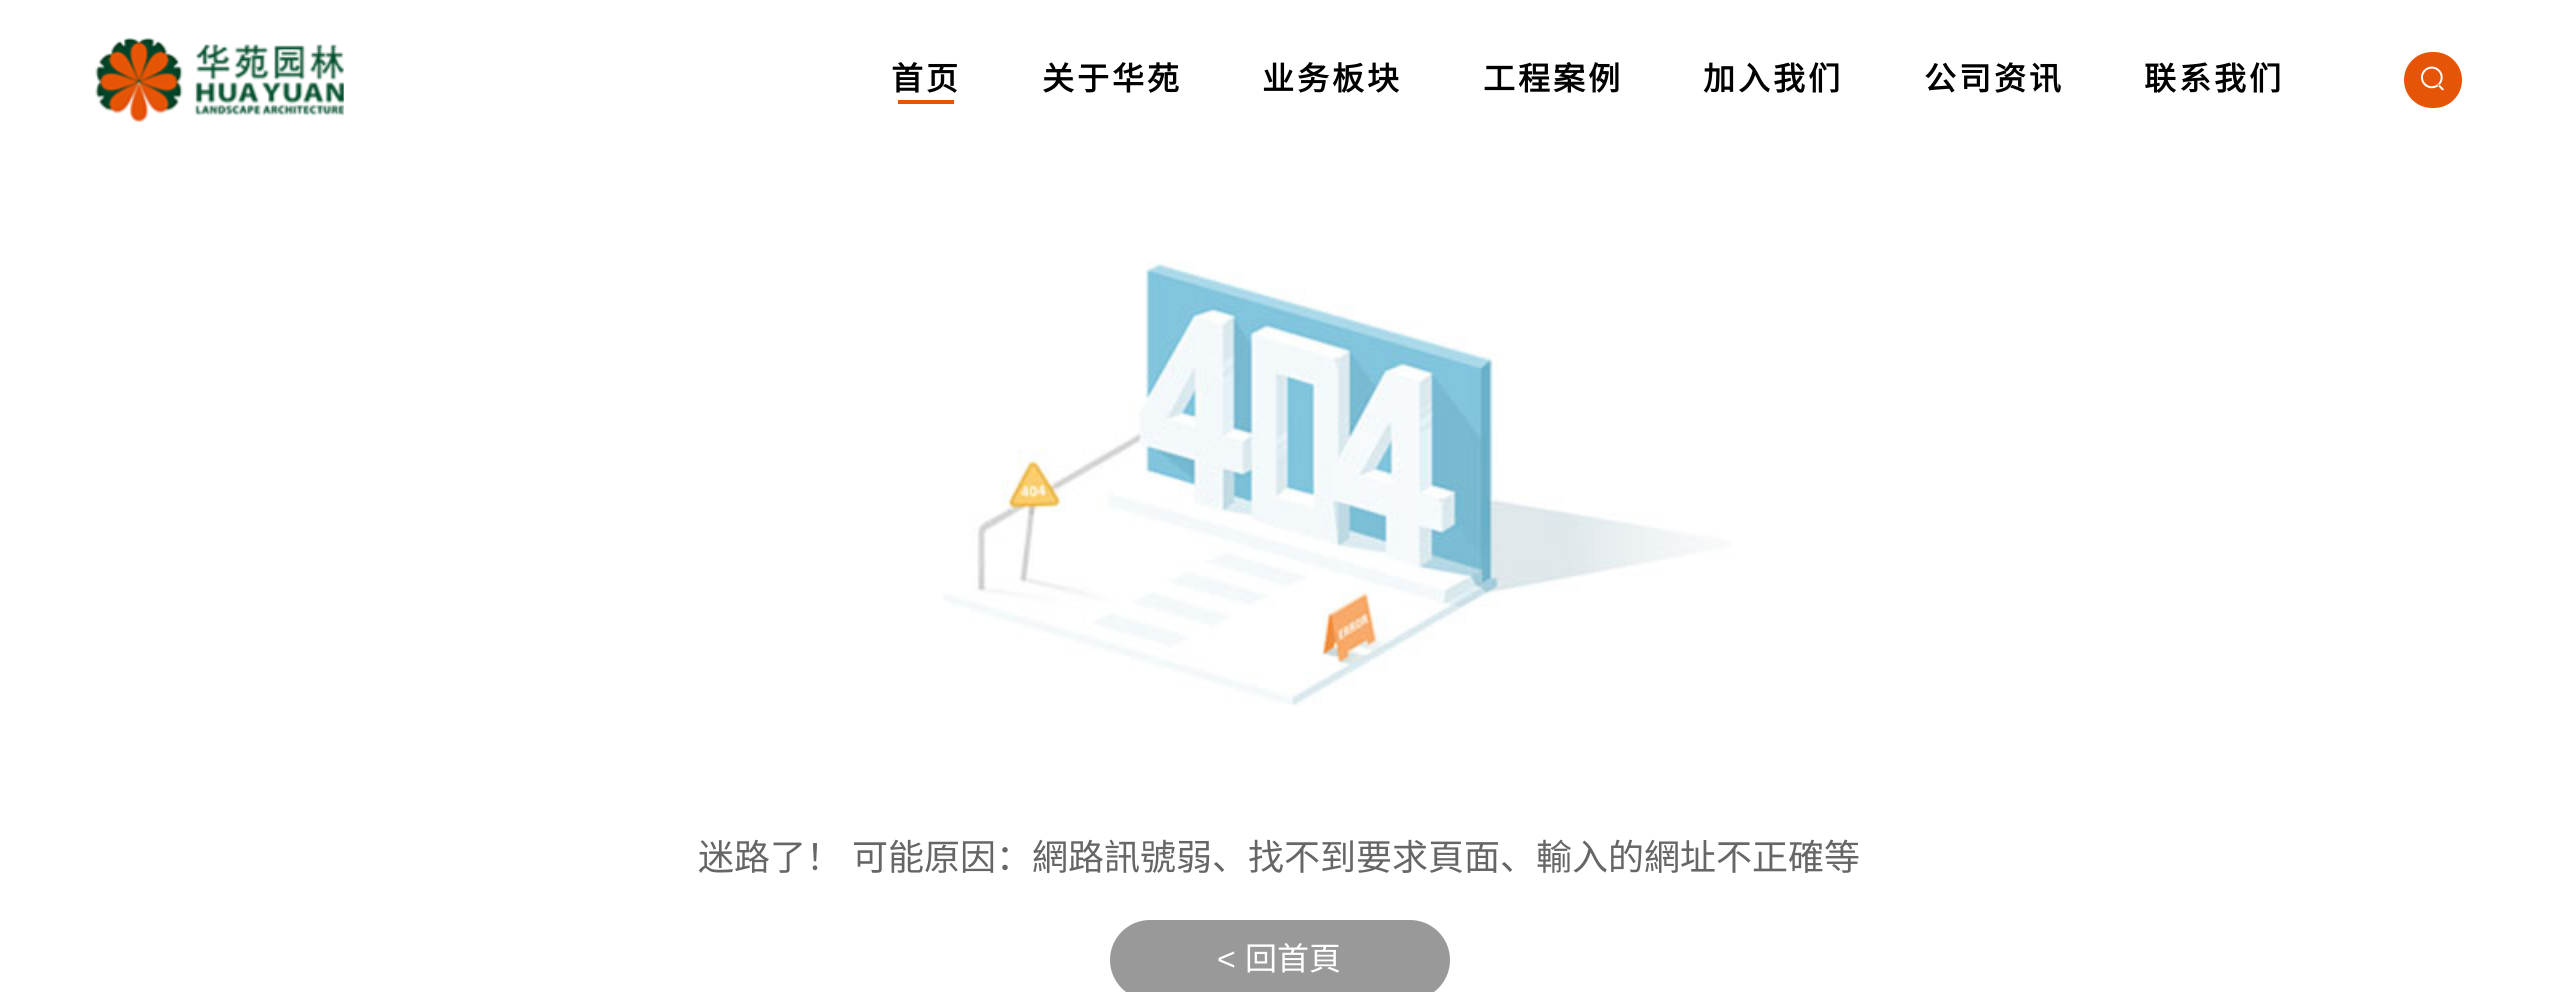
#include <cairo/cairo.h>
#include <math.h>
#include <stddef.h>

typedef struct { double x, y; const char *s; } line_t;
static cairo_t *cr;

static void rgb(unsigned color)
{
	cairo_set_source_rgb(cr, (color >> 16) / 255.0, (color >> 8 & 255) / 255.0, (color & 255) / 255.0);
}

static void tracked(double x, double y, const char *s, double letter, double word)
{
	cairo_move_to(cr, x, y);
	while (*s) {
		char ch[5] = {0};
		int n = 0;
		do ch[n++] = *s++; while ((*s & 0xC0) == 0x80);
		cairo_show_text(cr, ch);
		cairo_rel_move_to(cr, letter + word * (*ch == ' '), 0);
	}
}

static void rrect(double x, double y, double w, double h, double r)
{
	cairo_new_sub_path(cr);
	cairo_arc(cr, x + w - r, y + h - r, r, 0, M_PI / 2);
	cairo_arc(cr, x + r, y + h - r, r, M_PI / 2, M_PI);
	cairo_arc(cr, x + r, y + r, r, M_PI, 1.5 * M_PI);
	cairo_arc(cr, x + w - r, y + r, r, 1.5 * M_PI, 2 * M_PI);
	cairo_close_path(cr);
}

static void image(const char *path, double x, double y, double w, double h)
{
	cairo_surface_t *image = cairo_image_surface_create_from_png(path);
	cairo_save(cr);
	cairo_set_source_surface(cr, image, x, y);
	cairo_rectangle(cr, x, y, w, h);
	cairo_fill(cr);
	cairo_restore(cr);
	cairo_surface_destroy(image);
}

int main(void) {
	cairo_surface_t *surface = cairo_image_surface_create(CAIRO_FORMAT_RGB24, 2558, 992);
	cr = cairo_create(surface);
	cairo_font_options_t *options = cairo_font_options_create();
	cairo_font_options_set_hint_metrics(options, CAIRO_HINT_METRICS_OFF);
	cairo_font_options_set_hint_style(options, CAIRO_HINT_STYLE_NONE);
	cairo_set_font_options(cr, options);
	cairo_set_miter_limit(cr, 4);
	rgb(0xffffff);
	cairo_paint(cr);
	image("img/1.png", 95, 38, 249, 84);
	rgb(0xe65507);
	cairo_rectangle(cr, 898, 100, 56, 4);
	cairo_fill(cr);
	rrect(2404, 52, 58, 56, 28);
	cairo_fill(cr);
	image("img/2.png", 2421, 66, 23, 25);
	image("img/3.png", 942, 260, 790, 446);
	rgb(0x999999);
	rrect(1110, 920, 340, 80, 40);
	cairo_fill(cr);
	cairo_select_font_face(cr, "Noto Sans CJK SC", CAIRO_FONT_SLANT_NORMAL, CAIRO_FONT_WEIGHT_BOLD);
	cairo_set_font_size(cr, 32);
	rgb(0x000000);
	{
		static const line_t items[] = {
			{891, 90, "首页"},
			{1042, 90, "关于华苑"},
			{1262, 90, "业务板块"},
			{1483, 90, "工程案例"},
			{1703, 90, "加入我们"},
			{1924, 90, "公司资讯"},
			{2144, 90, "联系我们"},
		};
		for (size_t i = 0; i < sizeof items / sizeof *items; i++) {
			tracked(items[i].x, items[i].y, items[i].s, 3, 0);
		}
	}
	cairo_select_font_face(cr, "Noto Sans CJK SC", CAIRO_FONT_SLANT_NORMAL, CAIRO_FONT_WEIGHT_NORMAL);
	cairo_set_font_size(cr, 36);
	rgb(0x666666);
	tracked(698, 870, "迷路了！ 可能原因：網路訊號弱、找不到要求頁面、輸入的網址不正確等", 0, 2);
	cairo_select_font_face(cr, "Liberation Sans", CAIRO_FONT_SLANT_NORMAL, CAIRO_FONT_WEIGHT_NORMAL);
	cairo_set_font_size(cr, 32);
	rgb(0xffffff);
	cairo_move_to(cr, 1217, 970);
	cairo_show_text(cr, "<");
	cairo_select_font_face(cr, "Noto Sans CJK SC", CAIRO_FONT_SLANT_NORMAL, CAIRO_FONT_WEIGHT_NORMAL);
	cairo_move_to(cr, 1245, 970);
	cairo_show_text(cr, "回首頁");
	cairo_surface_write_to_png(surface, "page.png");
	cairo_font_options_destroy(options);
	cairo_destroy(cr);
	cairo_surface_destroy(surface);
	return 0;
}
